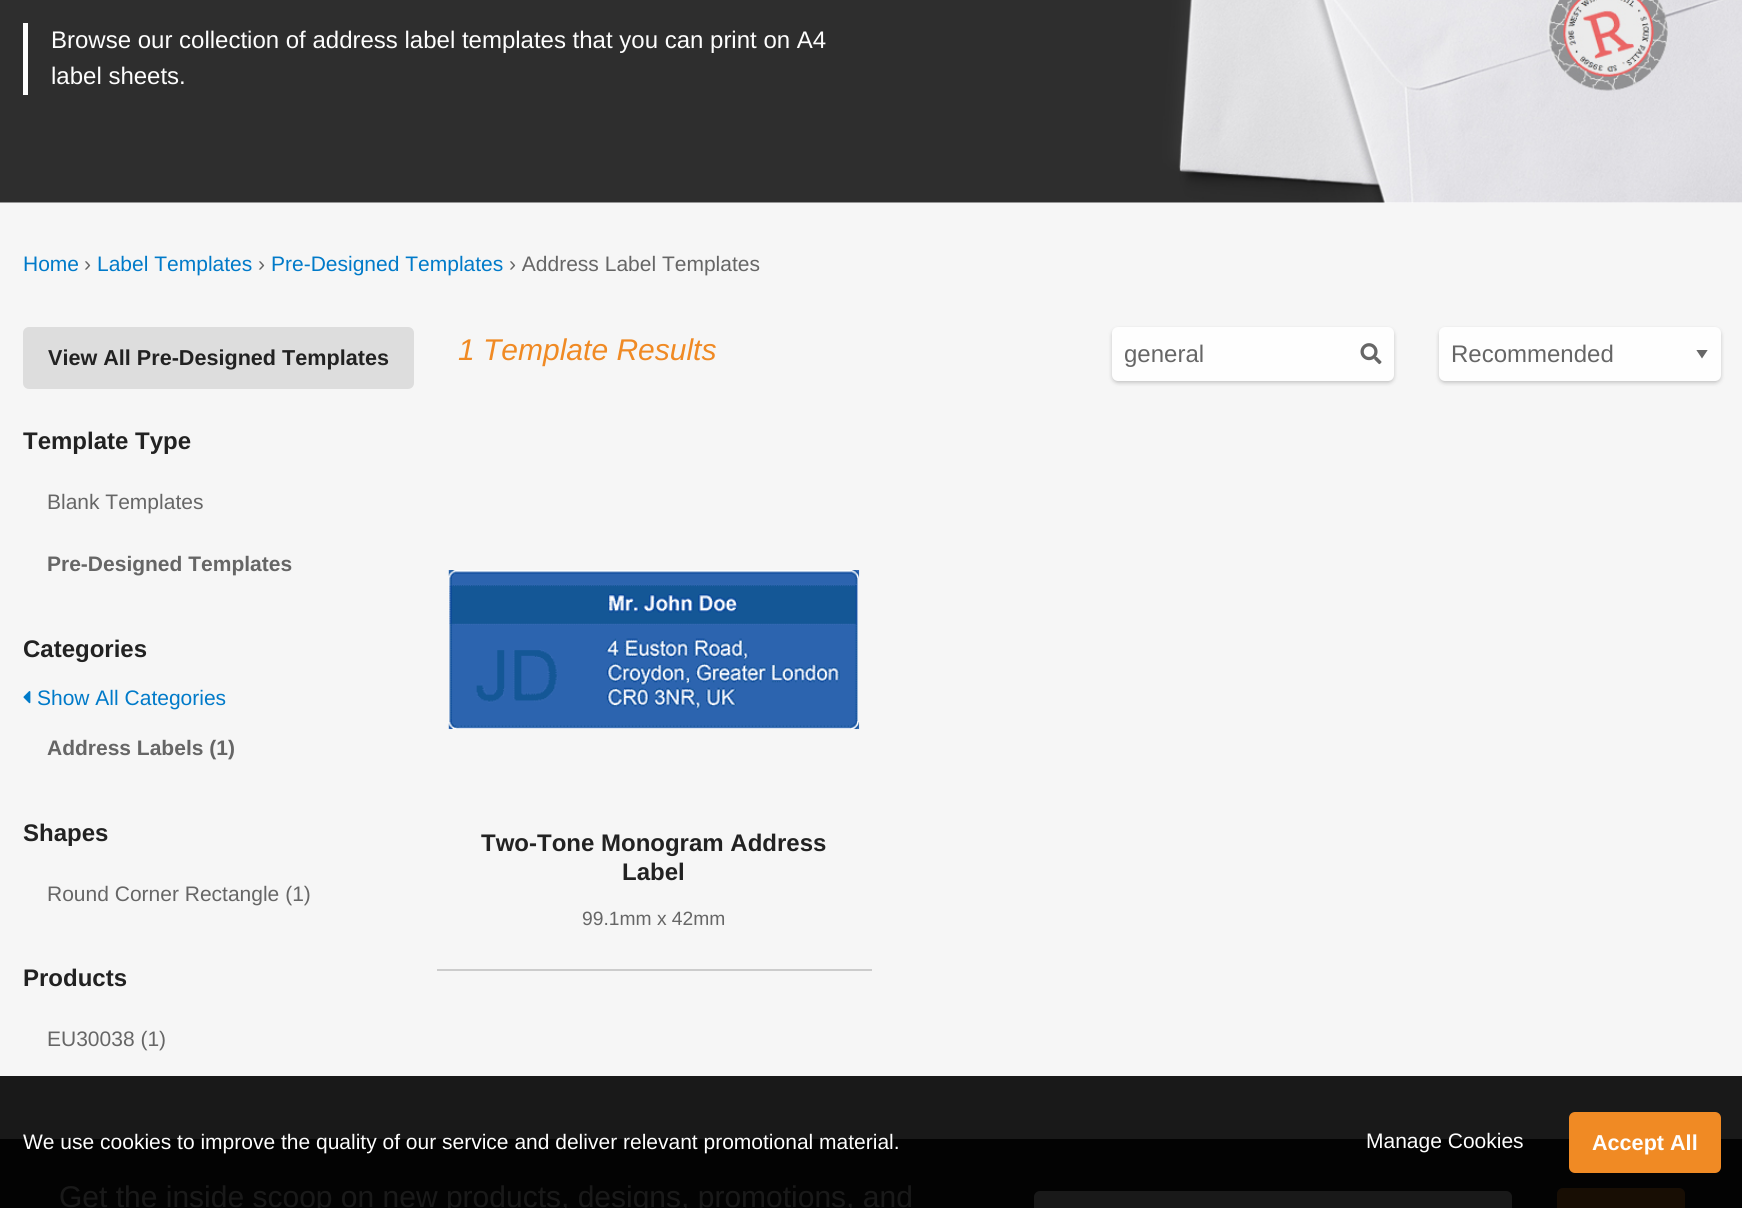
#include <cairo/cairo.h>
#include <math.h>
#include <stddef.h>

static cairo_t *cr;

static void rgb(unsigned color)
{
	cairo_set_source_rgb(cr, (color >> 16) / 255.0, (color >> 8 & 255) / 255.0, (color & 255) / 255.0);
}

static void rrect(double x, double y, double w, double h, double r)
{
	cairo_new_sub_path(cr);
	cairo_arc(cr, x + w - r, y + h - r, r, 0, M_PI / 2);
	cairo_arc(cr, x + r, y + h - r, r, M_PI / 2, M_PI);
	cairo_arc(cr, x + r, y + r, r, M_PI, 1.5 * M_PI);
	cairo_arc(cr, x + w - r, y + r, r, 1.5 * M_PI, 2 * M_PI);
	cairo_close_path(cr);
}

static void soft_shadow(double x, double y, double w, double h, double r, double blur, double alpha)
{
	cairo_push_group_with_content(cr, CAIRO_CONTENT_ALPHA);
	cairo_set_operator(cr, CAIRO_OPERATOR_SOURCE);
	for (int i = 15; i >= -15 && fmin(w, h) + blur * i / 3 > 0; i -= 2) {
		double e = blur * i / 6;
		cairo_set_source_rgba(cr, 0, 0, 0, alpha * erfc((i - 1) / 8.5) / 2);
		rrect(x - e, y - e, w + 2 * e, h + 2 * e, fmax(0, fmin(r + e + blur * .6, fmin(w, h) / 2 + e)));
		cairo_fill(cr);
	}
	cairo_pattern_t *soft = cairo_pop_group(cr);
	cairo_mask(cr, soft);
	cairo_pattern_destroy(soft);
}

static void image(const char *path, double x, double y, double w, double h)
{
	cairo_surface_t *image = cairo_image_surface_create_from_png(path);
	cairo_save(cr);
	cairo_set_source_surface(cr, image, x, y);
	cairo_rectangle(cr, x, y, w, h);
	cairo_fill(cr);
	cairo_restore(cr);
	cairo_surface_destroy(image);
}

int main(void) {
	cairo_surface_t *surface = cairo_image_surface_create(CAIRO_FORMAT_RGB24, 1742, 1208);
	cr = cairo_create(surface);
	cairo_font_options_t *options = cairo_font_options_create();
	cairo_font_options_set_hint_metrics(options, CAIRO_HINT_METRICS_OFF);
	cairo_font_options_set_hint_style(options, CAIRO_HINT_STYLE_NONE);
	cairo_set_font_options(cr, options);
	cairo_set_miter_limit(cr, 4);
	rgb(0xf6f6f6);
	cairo_paint(cr);
	rgb(0x191919);
	cairo_rectangle(cr, 0, 1076, 1742, 63);
	cairo_fill(cr);
	rgb(0xfefefe);
	cairo_rectangle(cr, 0, 202, 1742, 1);
	cairo_fill(cr);
	image("img/1.png", 0, 0, 1742, 203);
	cairo_rectangle(cr, 23, 23, 5, 72);
	cairo_fill(cr);
	rgb(0xdddddd);
	rrect(23, 327, 391, 62, 6);
	cairo_fill(cr);
	image("img/2.png", 23, 691, 8, 13);
	rgb(0x000000);
	soft_shadow(1112, 329, 282, 54, 6, 2, 0.2);
	rgb(0xfefefe);
	rrect(1112, 327, 282, 54, 6);
	cairo_fill(cr);
	image("img/3.png", 1360, 343, 22, 22);
	rgb(0x000000);
	soft_shadow(1439, 329, 282, 54, 6, 2, 0.2);
	rgb(0xfefefe);
	rrect(1439, 327, 282, 54, 6);
	cairo_fill(cr);
	cairo_save(cr);
	cairo_rectangle(cr, 1695, 350, 14, 9);
	cairo_clip(cr);
	rgb(0x666666);
	cairo_new_path(cr);
	cairo_move_to(cr, 1696, 349.5);
	cairo_line_to(cr, 1708, 349.5);
	cairo_line_to(cr, 1702, 358.5);
	cairo_close_path(cr);
	cairo_fill(cr);
	cairo_restore(cr);
	rgb(0xcccccc);
	cairo_rectangle(cr, 437, 969, 435, 2);
	cairo_fill(cr);
	image("img/4.png", 448, 570, 412, 160);
	rgb(0x030303);
	cairo_rectangle(cr, 0, 1139, 1742, 69);
	cairo_fill(cr);
	rgb(0xf08a24);
	rrect(1569, 1112, 152, 61, 6);
	cairo_fill(cr);
	rgb(0x191919);
	rrect(1034, 1191, 478, 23, 6);
	cairo_fill(cr);
	rgb(0x180e04);
	rrect(1557, 1188, 128, 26, 6);
	cairo_fill(cr);
	cairo_select_font_face(cr, "Liberation Sans", CAIRO_FONT_SLANT_NORMAL, CAIRO_FONT_WEIGHT_NORMAL);
	cairo_set_font_size(cr, 24);
	rgb(0xfefefe);
	cairo_move_to(cr, 51, 48);
	cairo_show_text(cr, "Browse our collection of address label templates that you can print on A4");
	cairo_move_to(cr, 51, 84);
	cairo_show_text(cr, "label sheets.");
	cairo_set_font_size(cr, 21);
	rgb(0x007ac9);
	cairo_move_to(cr, 23, 271);
	cairo_show_text(cr, "Home");
	rgb(0x666666);
	cairo_move_to(cr, 84, 271);
	cairo_show_text(cr, "›");
	rgb(0x007ac9);
	cairo_move_to(cr, 97, 271);
	cairo_show_text(cr, "Label Templates");
	rgb(0x666666);
	cairo_move_to(cr, 258, 271);
	cairo_show_text(cr, "›");
	rgb(0x007ac9);
	cairo_move_to(cr, 271, 271);
	cairo_show_text(cr, "Pre-Designed Templates");
	rgb(0x666666);
	cairo_move_to(cr, 509, 271);
	cairo_show_text(cr, "› Address Label Templates");
	cairo_select_font_face(cr, "Liberation Sans", CAIRO_FONT_SLANT_NORMAL, CAIRO_FONT_WEIGHT_BOLD);
	cairo_set_font_size(cr, 21.6);
	rgb(0x222222);
	cairo_move_to(cr, 48, 365);
	cairo_show_text(cr, "View All Pre-Designed Templates");
	cairo_set_font_size(cr, 24);
	cairo_move_to(cr, 23, 449);
	cairo_show_text(cr, "Template Type");
	cairo_select_font_face(cr, "Liberation Sans", CAIRO_FONT_SLANT_NORMAL, CAIRO_FONT_WEIGHT_NORMAL);
	cairo_set_font_size(cr, 21);
	rgb(0x666666);
	cairo_move_to(cr, 47, 509);
	cairo_show_text(cr, "Blank Templates");
	cairo_select_font_face(cr, "Liberation Sans", CAIRO_FONT_SLANT_NORMAL, CAIRO_FONT_WEIGHT_BOLD);
	cairo_move_to(cr, 47, 571);
	cairo_show_text(cr, "Pre-Designed Templates");
	cairo_set_font_size(cr, 24);
	rgb(0x222222);
	cairo_move_to(cr, 23, 657);
	cairo_show_text(cr, "Categories");
	cairo_select_font_face(cr, "Liberation Sans", CAIRO_FONT_SLANT_NORMAL, CAIRO_FONT_WEIGHT_NORMAL);
	cairo_set_font_size(cr, 21);
	rgb(0x007ac9);
	cairo_move_to(cr, 37, 705);
	cairo_show_text(cr, "Show All Categories");
	cairo_select_font_face(cr, "Liberation Sans", CAIRO_FONT_SLANT_NORMAL, CAIRO_FONT_WEIGHT_BOLD);
	rgb(0x666666);
	cairo_move_to(cr, 47, 755);
	cairo_show_text(cr, "Address Labels (1)");
	cairo_set_font_size(cr, 24);
	rgb(0x222222);
	cairo_move_to(cr, 23, 841);
	cairo_show_text(cr, "Shapes");
	cairo_select_font_face(cr, "Liberation Sans", CAIRO_FONT_SLANT_NORMAL, CAIRO_FONT_WEIGHT_NORMAL);
	cairo_set_font_size(cr, 21);
	rgb(0x666666);
	cairo_move_to(cr, 47, 901);
	cairo_show_text(cr, "Round Corner Rectangle (1)");
	cairo_select_font_face(cr, "Liberation Sans", CAIRO_FONT_SLANT_NORMAL, CAIRO_FONT_WEIGHT_BOLD);
	cairo_set_font_size(cr, 24);
	rgb(0x222222);
	cairo_move_to(cr, 23, 986);
	cairo_show_text(cr, "Products");
	cairo_select_font_face(cr, "Liberation Sans", CAIRO_FONT_SLANT_NORMAL, CAIRO_FONT_WEIGHT_NORMAL);
	cairo_set_font_size(cr, 21);
	rgb(0x666666);
	cairo_move_to(cr, 47, 1046);
	cairo_show_text(cr, "EU30038 (1)");
	cairo_select_font_face(cr, "Liberation Sans", CAIRO_FONT_SLANT_ITALIC, CAIRO_FONT_WEIGHT_NORMAL);
	cairo_set_font_size(cr, 30);
	rgb(0xf08a24);
	cairo_move_to(cr, 458, 360);
	cairo_show_text(cr, "1 Template Results");
	cairo_select_font_face(cr, "Liberation Sans", CAIRO_FONT_SLANT_NORMAL, CAIRO_FONT_WEIGHT_NORMAL);
	cairo_set_font_size(cr, 24);
	rgb(0x666666);
	cairo_move_to(cr, 1124, 362);
	cairo_show_text(cr, "general");
	cairo_move_to(cr, 1451, 362);
	cairo_show_text(cr, "Recommended");
	cairo_select_font_face(cr, "Liberation Sans", CAIRO_FONT_SLANT_NORMAL, CAIRO_FONT_WEIGHT_BOLD);
	rgb(0x222222);
	cairo_move_to(cr, 481, 851);
	cairo_show_text(cr, "Two-Tone Monogram Address");
	cairo_move_to(cr, 622, 880);
	cairo_show_text(cr, "Label");
	cairo_select_font_face(cr, "Liberation Sans", CAIRO_FONT_SLANT_NORMAL, CAIRO_FONT_WEIGHT_NORMAL);
	cairo_set_font_size(cr, 19.25);
	rgb(0x666666);
	cairo_move_to(cr, 582, 925);
	cairo_show_text(cr, "99.1mm x 42mm");
	cairo_set_font_size(cr, 21);
	rgb(0xfefefe);
	cairo_move_to(cr, 23, 1149);
	cairo_show_text(cr, "We use cookies to improve the quality of our service and deliver relevant promotional material.");
	cairo_move_to(cr, 1366, 1148);
	cairo_show_text(cr, "Manage Cookies");
	cairo_select_font_face(cr, "Liberation Sans", CAIRO_FONT_SLANT_NORMAL, CAIRO_FONT_WEIGHT_BOLD);
	cairo_set_font_size(cr, 21.6);
	cairo_move_to(cr, 1592, 1150);
	cairo_show_text(cr, "Accept All");
	cairo_select_font_face(cr, "Liberation Sans", CAIRO_FONT_SLANT_NORMAL, CAIRO_FONT_WEIGHT_NORMAL);
	cairo_set_font_size(cr, 30);
	rgb(0x191919);
	cairo_move_to(cr, 59, 1207);
	cairo_show_text(cr, "Get the inside scoop on new products, designs, promotions, and");
	cairo_surface_write_to_png(surface, "page.png");
	cairo_font_options_destroy(options);
	cairo_destroy(cr);
	cairo_surface_destroy(surface);
	return 0;
}
